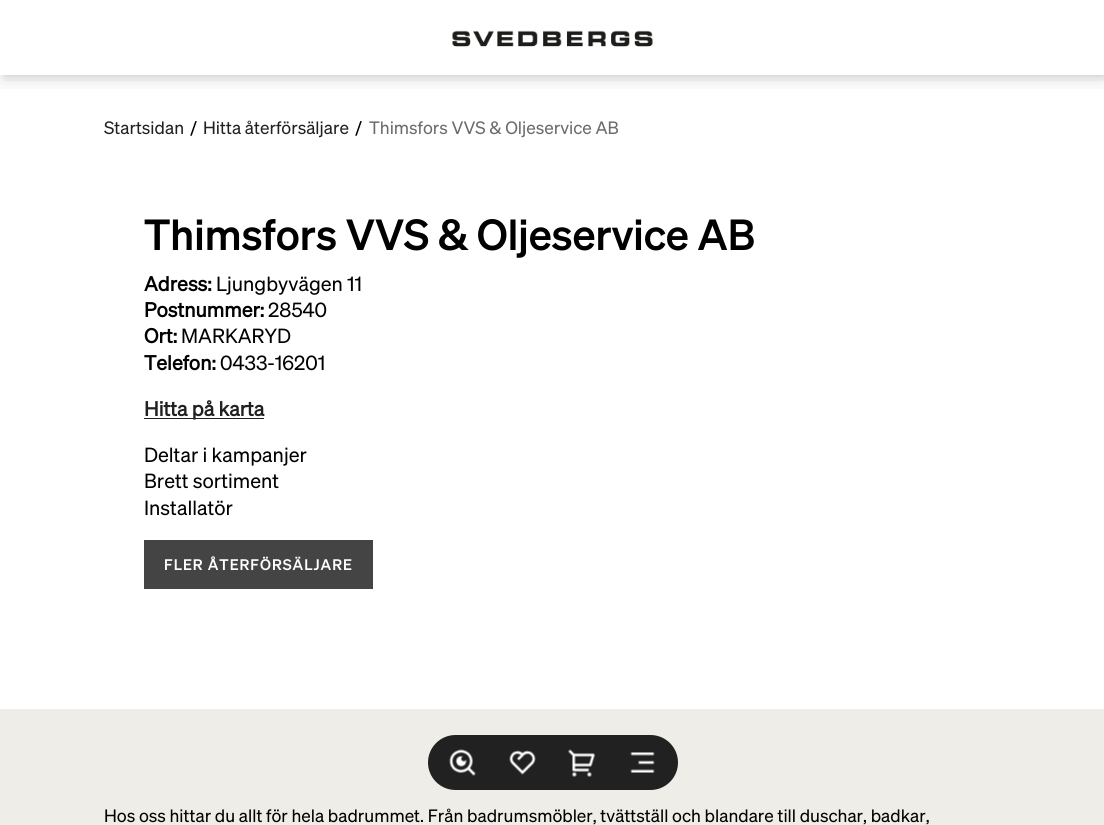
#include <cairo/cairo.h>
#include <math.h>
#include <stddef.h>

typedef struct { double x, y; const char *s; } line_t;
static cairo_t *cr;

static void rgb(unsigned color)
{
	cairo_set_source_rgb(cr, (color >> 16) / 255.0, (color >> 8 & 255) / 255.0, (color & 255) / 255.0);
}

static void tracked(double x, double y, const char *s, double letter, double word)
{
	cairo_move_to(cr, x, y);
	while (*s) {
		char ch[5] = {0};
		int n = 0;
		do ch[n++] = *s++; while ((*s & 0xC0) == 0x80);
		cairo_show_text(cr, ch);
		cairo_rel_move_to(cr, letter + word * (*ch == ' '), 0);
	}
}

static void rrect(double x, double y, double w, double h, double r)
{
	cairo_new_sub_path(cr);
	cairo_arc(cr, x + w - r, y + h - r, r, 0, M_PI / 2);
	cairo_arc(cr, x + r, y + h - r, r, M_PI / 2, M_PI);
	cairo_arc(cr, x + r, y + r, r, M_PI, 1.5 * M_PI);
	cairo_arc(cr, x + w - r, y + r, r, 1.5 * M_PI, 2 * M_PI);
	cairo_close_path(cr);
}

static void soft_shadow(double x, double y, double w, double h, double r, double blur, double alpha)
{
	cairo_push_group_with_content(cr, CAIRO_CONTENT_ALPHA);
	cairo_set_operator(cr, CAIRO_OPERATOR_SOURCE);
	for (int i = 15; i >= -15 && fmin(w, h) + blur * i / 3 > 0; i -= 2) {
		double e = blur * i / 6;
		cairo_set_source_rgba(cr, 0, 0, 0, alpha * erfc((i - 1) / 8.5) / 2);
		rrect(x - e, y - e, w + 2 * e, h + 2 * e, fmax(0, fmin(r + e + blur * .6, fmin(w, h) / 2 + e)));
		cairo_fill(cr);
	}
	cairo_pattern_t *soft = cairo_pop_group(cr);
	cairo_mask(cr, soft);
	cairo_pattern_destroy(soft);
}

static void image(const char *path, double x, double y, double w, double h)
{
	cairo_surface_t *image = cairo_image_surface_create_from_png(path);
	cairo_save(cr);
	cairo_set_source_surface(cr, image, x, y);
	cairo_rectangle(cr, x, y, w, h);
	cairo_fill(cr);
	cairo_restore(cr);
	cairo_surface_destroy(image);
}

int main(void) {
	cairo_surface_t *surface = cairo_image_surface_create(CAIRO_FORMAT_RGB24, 1104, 825);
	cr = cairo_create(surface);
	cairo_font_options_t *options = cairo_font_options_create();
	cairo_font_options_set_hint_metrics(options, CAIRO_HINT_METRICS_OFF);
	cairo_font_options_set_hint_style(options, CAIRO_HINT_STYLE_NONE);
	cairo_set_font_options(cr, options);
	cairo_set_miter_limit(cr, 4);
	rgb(0xffffff);
	cairo_paint(cr);
	cairo_save(cr);
	cairo_rectangle(cr, 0, 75, 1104, 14);
	cairo_clip(cr);
	rgb(0x000000);
	soft_shadow(0, 0, 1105, 75, 0, 12.5, 0.15);
	cairo_restore(cr);
	cairo_save(cr);
	cairo_rectangle(cr, 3, 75, 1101, 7);
	cairo_clip(cr);
	rgb(0x000000);
	soft_shadow(6, 0, 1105, 75, 0, 6, 0.15);
	cairo_restore(cr);
	image("img/1.png", 452, 30, 201, 17);
	rgb(0xefede7);
	cairo_rectangle(cr, 0, 709, 1104, 116);
	cairo_fill(cr);
	rgb(0x212121);
	rrect(428, 735, 250, 55, 27.5);
	cairo_fill(cr);
	image("img/2.png", 449, 749, 27, 27);
	image("img/3.png", 509, 750, 27, 25);
	image("img/4.png", 568, 749, 27, 28);
	image("img/5.png", 630, 752, 25, 21);
	cairo_rectangle(cr, 144, 418, 120, 1);
	cairo_fill(cr);
	rgb(0x444444);
	cairo_rectangle(cr, 144, 540, 229, 49);
	cairo_fill(cr);
	cairo_select_font_face(cr, "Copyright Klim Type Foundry", CAIRO_FONT_SLANT_NORMAL, CAIRO_FONT_WEIGHT_NORMAL);
	cairo_set_font_size(cr, 17.5);
	rgb(0x212121);
	cairo_move_to(cr, 104, 134);
	cairo_show_text(cr, "Startsidan");
	rgb(0x000000);
	cairo_move_to(cr, 190, 134);
	cairo_show_text(cr, "/");
	rgb(0x212121);
	cairo_move_to(cr, 203, 134);
	cairo_show_text(cr, "Hitta återförsäljare");
	rgb(0x000000);
	cairo_move_to(cr, 355, 134);
	cairo_show_text(cr, "/");
	rgb(0x6b6b6b);
	cairo_move_to(cr, 369, 134);
	cairo_show_text(cr, "Thimsfors VVS & Oljeservice AB");
	cairo_select_font_face(cr, "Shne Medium", CAIRO_FONT_SLANT_NORMAL, CAIRO_FONT_WEIGHT_NORMAL);
	cairo_set_font_size(cr, 42.5);
	rgb(0x000000);
	cairo_move_to(cr, 144, 250);
	cairo_show_text(cr, "Thimsfors VVS & Oljeservice AB");
	cairo_select_font_face(cr, "Copyright Klim Type Foundry", CAIRO_FONT_SLANT_NORMAL, CAIRO_FONT_WEIGHT_BOLD);
	cairo_set_font_size(cr, 20);
	cairo_move_to(cr, 144, 291);
	cairo_show_text(cr, "Adress:");
	cairo_select_font_face(cr, "Copyright Klim Type Foundry", CAIRO_FONT_SLANT_NORMAL, CAIRO_FONT_WEIGHT_NORMAL);
	cairo_move_to(cr, 216, 291);
	cairo_show_text(cr, "Ljungbyvägen 11");
	cairo_select_font_face(cr, "Copyright Klim Type Foundry", CAIRO_FONT_SLANT_NORMAL, CAIRO_FONT_WEIGHT_BOLD);
	cairo_move_to(cr, 144, 317);
	cairo_show_text(cr, "Postnummer:");
	cairo_select_font_face(cr, "Copyright Klim Type Foundry", CAIRO_FONT_SLANT_NORMAL, CAIRO_FONT_WEIGHT_NORMAL);
	cairo_move_to(cr, 268, 317);
	cairo_show_text(cr, "28540");
	cairo_select_font_face(cr, "Copyright Klim Type Foundry", CAIRO_FONT_SLANT_NORMAL, CAIRO_FONT_WEIGHT_BOLD);
	cairo_move_to(cr, 144, 343);
	cairo_show_text(cr, "Ort:");
	cairo_select_font_face(cr, "Copyright Klim Type Foundry", CAIRO_FONT_SLANT_NORMAL, CAIRO_FONT_WEIGHT_NORMAL);
	cairo_move_to(cr, 181, 343);
	cairo_show_text(cr, "MARKARYD");
	cairo_select_font_face(cr, "Copyright Klim Type Foundry", CAIRO_FONT_SLANT_NORMAL, CAIRO_FONT_WEIGHT_BOLD);
	cairo_move_to(cr, 144, 370);
	cairo_show_text(cr, "Telefon:");
	cairo_select_font_face(cr, "Copyright Klim Type Foundry", CAIRO_FONT_SLANT_NORMAL, CAIRO_FONT_WEIGHT_NORMAL);
	cairo_move_to(cr, 220, 370);
	cairo_show_text(cr, "0433-16201");
	cairo_select_font_face(cr, "Copyright Klim Type Foundry", CAIRO_FONT_SLANT_NORMAL, CAIRO_FONT_WEIGHT_BOLD);
	rgb(0x212121);
	cairo_move_to(cr, 144, 416);
	cairo_show_text(cr, "Hitta på karta");
	cairo_select_font_face(cr, "Copyright Klim Type Foundry", CAIRO_FONT_SLANT_NORMAL, CAIRO_FONT_WEIGHT_NORMAL);
	rgb(0x000000);
	{
		static const line_t items[] = {
			{144, 462, "Deltar i kampanjer"},
			{144, 488, "Brett sortiment"},
			{144, 515, "Installatör"},
		};
		for (size_t i = 0; i < sizeof items / sizeof *items; i++) {
			cairo_move_to(cr, items[i].x, items[i].y);
			cairo_show_text(cr, items[i].s);
		}
	}
	cairo_select_font_face(cr, "Shne Medium", CAIRO_FONT_SLANT_NORMAL, CAIRO_FONT_WEIGHT_NORMAL);
	cairo_set_font_size(cr, 15);
	rgb(0xffffff);
	tracked(164, 570, "FLER ÅTERFÖRSÄLJARE", 1, 0);
	cairo_select_font_face(cr, "Copyright Klim Type Foundry", CAIRO_FONT_SLANT_NORMAL, CAIRO_FONT_WEIGHT_NORMAL);
	cairo_set_font_size(cr, 17.5);
	rgb(0x000000);
	cairo_move_to(cr, 104, 822);
	cairo_show_text(cr, "Hos oss hittar du allt för hela badrummet. Från badrumsmöbler, tvättställ och blandare till duschar, badkar,");
	cairo_surface_write_to_png(surface, "page.png");
	cairo_font_options_destroy(options);
	cairo_destroy(cr);
	cairo_surface_destroy(surface);
	return 0;
}
